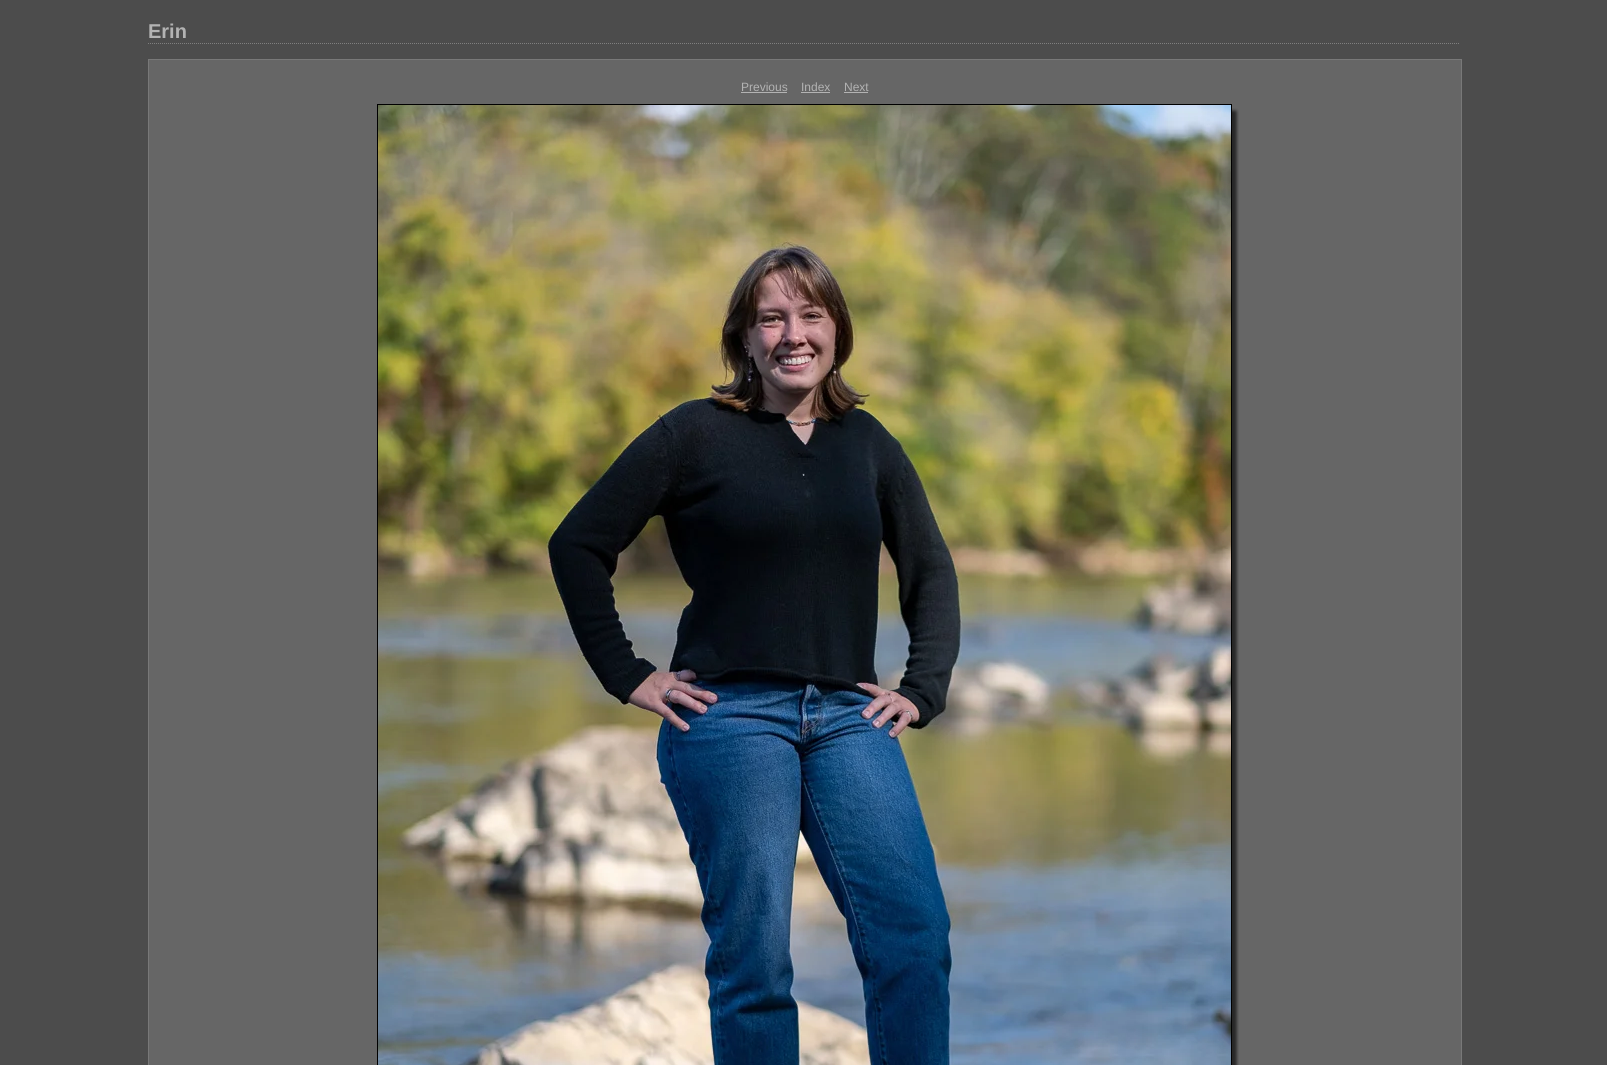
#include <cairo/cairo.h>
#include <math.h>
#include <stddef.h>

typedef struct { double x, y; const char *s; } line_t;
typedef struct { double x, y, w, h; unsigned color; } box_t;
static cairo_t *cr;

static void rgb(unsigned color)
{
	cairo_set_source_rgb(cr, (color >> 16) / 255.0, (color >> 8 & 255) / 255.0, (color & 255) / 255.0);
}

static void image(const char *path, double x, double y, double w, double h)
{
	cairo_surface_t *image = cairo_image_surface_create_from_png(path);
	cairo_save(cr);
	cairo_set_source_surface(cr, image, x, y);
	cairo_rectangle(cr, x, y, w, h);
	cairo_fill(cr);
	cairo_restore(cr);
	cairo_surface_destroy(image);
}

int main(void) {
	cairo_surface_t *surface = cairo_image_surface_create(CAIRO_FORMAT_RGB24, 1607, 1065);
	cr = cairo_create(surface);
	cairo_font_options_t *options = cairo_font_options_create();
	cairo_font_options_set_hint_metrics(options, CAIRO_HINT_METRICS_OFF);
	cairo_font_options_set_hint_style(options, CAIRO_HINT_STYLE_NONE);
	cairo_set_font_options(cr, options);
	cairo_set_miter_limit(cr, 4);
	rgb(0x4c4c4c);
	cairo_paint(cr);
	cairo_new_path(cr);
	cairo_move_to(cr, 148, 43.5);
	cairo_line_to(cr, 1460, 43.5);
	rgb(0x7f7f7f);
	cairo_set_line_width(cr, 1);
	cairo_set_dash(cr, (double[]){1, 1}, 2, 0);
	cairo_stroke(cr);
	rgb(0x666666);
	cairo_rectangle(cr, 148.5, 59.5, 1313, 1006);
	cairo_fill_preserve(cr);
	rgb(0x787878);
	cairo_set_dash(cr, NULL, 0, 0);
	cairo_stroke(cr);
	{
		static const box_t items[] = {
			{741, 92, 46, 1, 0xb3b3b3},
			{801, 92, 29, 1, 0xb3b3b3},
			{844, 92, 24, 1, 0xb3b3b3},
		};
		for (size_t i = 0; i < sizeof items / sizeof *items; i++) {
			rgb(items[i].color);
			cairo_rectangle(cr, items[i].x, items[i].y, items[i].w, items[i].h);
			cairo_fill(cr);
		}
	}
	image("img/1.png", 1232, 117, 7, 948);
	cairo_rectangle(cr, 377.5, 104.5, 854, 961);
	rgb(0x000000);
	cairo_stroke(cr);
	image("img/2.png", 378, 105, 853, 960);
	image("img/3.png", 1232, 108, 7, 9);
	cairo_select_font_face(cr, "Liberation Sans", CAIRO_FONT_SLANT_NORMAL, CAIRO_FONT_WEIGHT_BOLD);
	cairo_set_font_size(cr, 20);
	rgb(0xb3b3b3);
	cairo_move_to(cr, 148, 38);
	cairo_show_text(cr, "Erin");
	cairo_select_font_face(cr, "Liberation Sans", CAIRO_FONT_SLANT_NORMAL, CAIRO_FONT_WEIGHT_NORMAL);
	cairo_set_font_size(cr, 12);
	{
		static const line_t items[] = {
			{741, 91, "Previous"},
			{801, 91, "Index"},
			{844, 91, "Next"},
		};
		for (size_t i = 0; i < sizeof items / sizeof *items; i++) {
			cairo_move_to(cr, items[i].x, items[i].y);
			cairo_show_text(cr, items[i].s);
		}
	}
	cairo_surface_write_to_png(surface, "page.png");
	cairo_font_options_destroy(options);
	cairo_destroy(cr);
	cairo_surface_destroy(surface);
	return 0;
}
